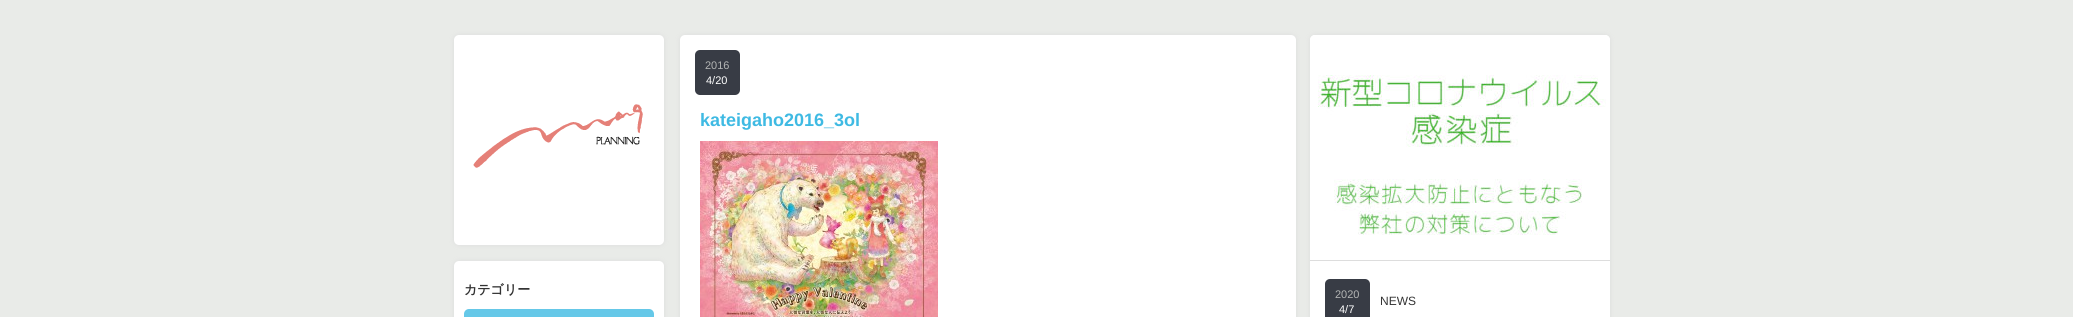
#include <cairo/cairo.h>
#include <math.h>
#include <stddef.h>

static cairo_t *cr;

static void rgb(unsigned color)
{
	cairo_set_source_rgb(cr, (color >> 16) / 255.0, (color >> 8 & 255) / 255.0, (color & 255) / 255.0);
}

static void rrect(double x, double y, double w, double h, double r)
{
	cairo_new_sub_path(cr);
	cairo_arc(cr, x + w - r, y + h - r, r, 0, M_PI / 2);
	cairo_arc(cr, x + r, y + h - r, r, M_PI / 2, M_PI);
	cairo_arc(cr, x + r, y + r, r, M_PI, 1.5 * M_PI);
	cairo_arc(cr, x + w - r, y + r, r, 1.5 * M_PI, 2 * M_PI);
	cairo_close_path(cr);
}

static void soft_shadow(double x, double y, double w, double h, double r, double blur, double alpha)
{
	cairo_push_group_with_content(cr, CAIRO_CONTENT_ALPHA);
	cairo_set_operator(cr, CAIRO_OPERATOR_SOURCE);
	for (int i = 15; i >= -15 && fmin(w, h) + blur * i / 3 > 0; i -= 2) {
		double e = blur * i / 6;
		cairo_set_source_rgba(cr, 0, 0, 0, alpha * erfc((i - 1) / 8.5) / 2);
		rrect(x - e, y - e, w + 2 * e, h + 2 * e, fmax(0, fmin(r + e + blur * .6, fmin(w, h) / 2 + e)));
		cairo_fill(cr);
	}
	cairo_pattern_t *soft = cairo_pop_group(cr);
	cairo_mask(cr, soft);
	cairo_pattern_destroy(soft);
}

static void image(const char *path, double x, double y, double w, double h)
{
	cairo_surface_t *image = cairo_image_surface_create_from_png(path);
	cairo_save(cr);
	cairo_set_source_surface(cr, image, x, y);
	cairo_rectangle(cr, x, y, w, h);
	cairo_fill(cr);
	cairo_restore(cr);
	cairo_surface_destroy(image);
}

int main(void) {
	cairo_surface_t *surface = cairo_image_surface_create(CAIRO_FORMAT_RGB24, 2073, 317);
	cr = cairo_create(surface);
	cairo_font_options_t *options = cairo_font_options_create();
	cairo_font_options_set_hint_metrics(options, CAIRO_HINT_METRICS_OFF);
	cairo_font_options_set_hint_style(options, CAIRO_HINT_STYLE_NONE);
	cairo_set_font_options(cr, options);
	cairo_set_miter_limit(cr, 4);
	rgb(0xe9ebe8);
	cairo_paint(cr);
	rgb(0xdddddd);
	soft_shadow(680, 35, 616, 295, 5, 2.5, 1);
	rgb(0xffffff);
	rrect(680, 35, 616, 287, 5);
	cairo_fill(cr);
	rgb(0x383c45);
	rrect(695, 50, 45, 45, 5);
	cairo_fill(cr);
	image("img/1.png", 700, 141, 238, 176);
	rgb(0xdddddd);
	soft_shadow(454, 35, 210, 210, 5, 2.5, 1);
	rgb(0xffffff);
	rrect(454, 35, 210, 210, 5);
	cairo_fill(cr);
	image("img/2.png", 473, 104, 170, 64);
	rgb(0xdddddd);
	soft_shadow(454, 261, 210, 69, 5, 2.5, 1);
	rgb(0xffffff);
	rrect(454, 261, 210, 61, 5);
	cairo_fill(cr);
	rgb(0x65c8e8);
	rrect(464, 309, 190, 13, 5);
	cairo_fill(cr);
	rgb(0xdddddd);
	soft_shadow(1310, 35, 300, 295, 5, 2.5, 1);
	rgb(0xffffff);
	rrect(1310, 35, 300, 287, 5);
	cairo_fill(cr);
	image("img/3.png", 1310, 35, 300, 200);
	rgb(0xdddddd);
	cairo_rectangle(cr, 1310, 260, 300, 1);
	cairo_fill(cr);
	rgb(0x383c45);
	rrect(1325, 279, 45, 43, 5);
	cairo_fill(cr);
	cairo_select_font_face(cr, "Liberation Sans", CAIRO_FONT_SLANT_NORMAL, CAIRO_FONT_WEIGHT_NORMAL);
	cairo_set_font_size(cr, 11);
	rgb(0xb3b5b4);
	cairo_move_to(cr, 705, 69);
	cairo_show_text(cr, "2016");
	rgb(0xffffff);
	cairo_move_to(cr, 706, 84);
	cairo_show_text(cr, "4/20");
	cairo_select_font_face(cr, "Liberation Sans", CAIRO_FONT_SLANT_NORMAL, CAIRO_FONT_WEIGHT_BOLD);
	cairo_set_font_size(cr, 18);
	rgb(0x3fbae3);
	cairo_move_to(cr, 700, 126);
	cairo_show_text(cr, "kateigaho2016_3ol");
	cairo_select_font_face(cr, "WenQuanYi Zen Hei", CAIRO_FONT_SLANT_NORMAL, CAIRO_FONT_WEIGHT_BOLD);
	cairo_set_font_size(cr, 13);
	rgb(0x333333);
	cairo_move_to(cr, 464, 294);
	cairo_show_text(cr, "カテゴリー");
	cairo_select_font_face(cr, "Liberation Sans", CAIRO_FONT_SLANT_NORMAL, CAIRO_FONT_WEIGHT_NORMAL);
	cairo_set_font_size(cr, 11);
	rgb(0xb3b5b4);
	cairo_move_to(cr, 1335, 298);
	cairo_show_text(cr, "2020");
	rgb(0xffffff);
	cairo_move_to(cr, 1339, 313);
	cairo_show_text(cr, "4/7");
	cairo_set_font_size(cr, 12);
	rgb(0x333333);
	cairo_move_to(cr, 1380, 305);
	cairo_show_text(cr, "NEWS");
	cairo_surface_write_to_png(surface, "page.png");
	cairo_font_options_destroy(options);
	cairo_destroy(cr);
	cairo_surface_destroy(surface);
	return 0;
}
